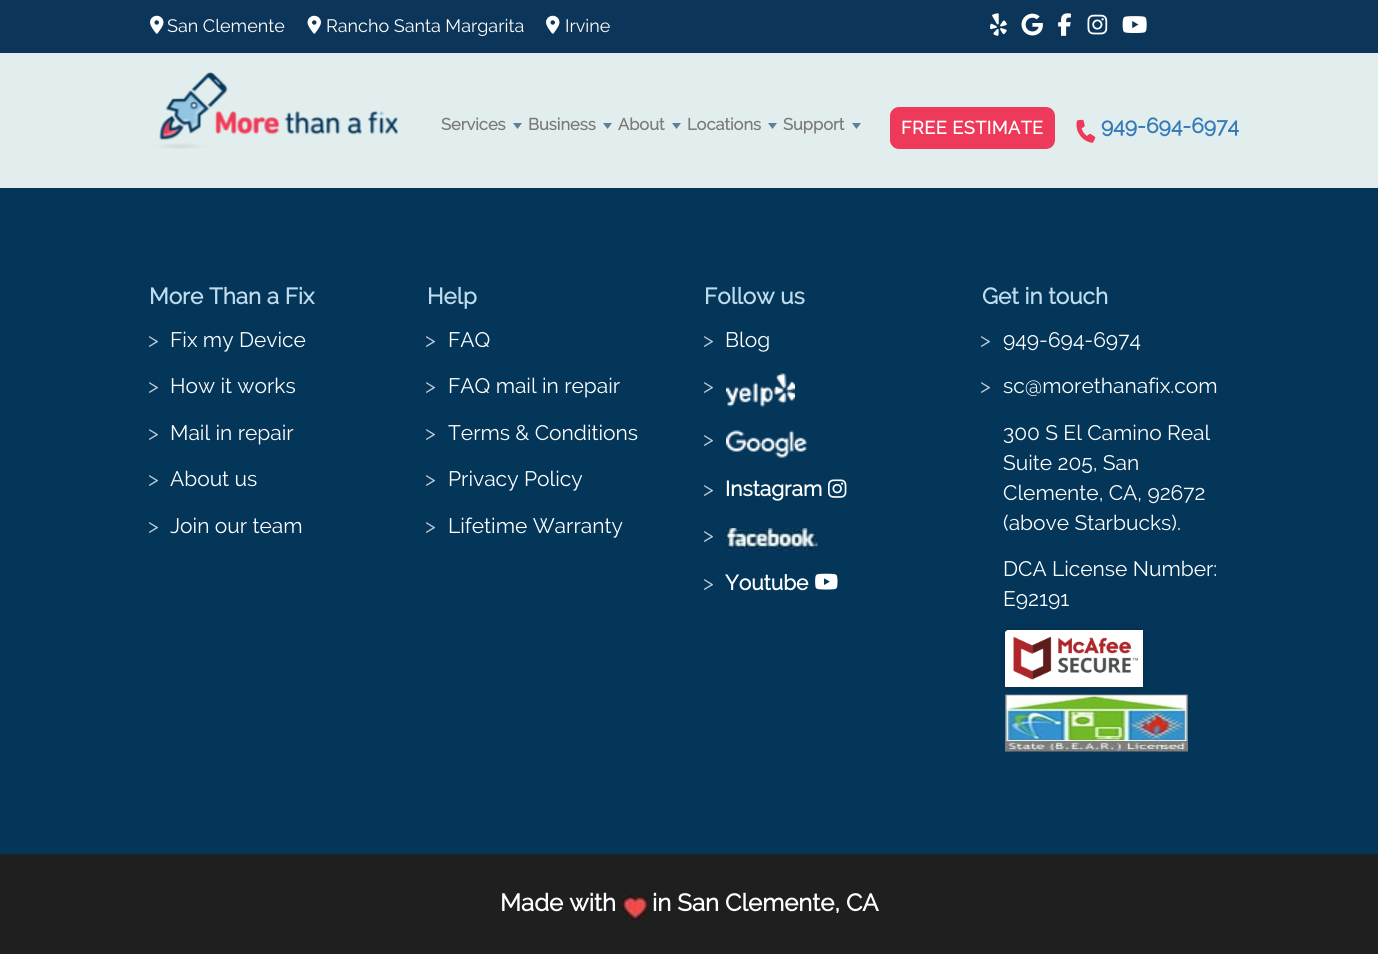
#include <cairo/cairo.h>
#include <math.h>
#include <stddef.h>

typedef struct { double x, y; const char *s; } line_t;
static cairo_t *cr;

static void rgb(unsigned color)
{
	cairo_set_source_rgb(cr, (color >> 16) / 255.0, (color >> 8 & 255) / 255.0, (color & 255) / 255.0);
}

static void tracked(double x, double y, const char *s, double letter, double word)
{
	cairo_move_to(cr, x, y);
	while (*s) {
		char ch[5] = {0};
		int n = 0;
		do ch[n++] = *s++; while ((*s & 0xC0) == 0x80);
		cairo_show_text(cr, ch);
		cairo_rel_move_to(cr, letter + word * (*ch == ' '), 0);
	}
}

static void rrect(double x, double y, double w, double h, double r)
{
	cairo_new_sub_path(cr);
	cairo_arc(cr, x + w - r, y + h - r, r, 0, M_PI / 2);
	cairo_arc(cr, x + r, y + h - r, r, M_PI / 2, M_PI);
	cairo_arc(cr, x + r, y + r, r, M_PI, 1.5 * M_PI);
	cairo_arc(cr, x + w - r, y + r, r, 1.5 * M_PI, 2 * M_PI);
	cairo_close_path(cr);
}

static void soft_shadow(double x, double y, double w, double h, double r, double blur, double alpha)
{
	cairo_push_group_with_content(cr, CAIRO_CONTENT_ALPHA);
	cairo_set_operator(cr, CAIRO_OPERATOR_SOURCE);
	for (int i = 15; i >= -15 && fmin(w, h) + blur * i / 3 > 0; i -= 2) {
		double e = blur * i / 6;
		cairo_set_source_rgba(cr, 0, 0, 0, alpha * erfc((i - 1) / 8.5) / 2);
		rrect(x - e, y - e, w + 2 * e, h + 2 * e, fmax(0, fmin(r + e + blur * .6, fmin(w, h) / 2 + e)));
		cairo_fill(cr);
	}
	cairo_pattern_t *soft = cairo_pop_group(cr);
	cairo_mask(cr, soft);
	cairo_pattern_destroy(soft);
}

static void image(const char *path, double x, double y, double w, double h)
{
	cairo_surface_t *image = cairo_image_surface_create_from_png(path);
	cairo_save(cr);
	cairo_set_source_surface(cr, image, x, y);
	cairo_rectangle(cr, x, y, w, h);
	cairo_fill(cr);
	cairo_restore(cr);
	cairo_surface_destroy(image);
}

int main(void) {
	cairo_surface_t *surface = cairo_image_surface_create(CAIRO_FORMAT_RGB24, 1378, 954);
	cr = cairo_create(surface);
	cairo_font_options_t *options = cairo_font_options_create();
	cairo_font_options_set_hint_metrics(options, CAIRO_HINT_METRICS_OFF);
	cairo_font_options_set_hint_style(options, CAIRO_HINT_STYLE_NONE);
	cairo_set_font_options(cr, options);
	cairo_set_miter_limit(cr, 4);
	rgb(0x04365a);
	cairo_paint(cr);
	rgb(0x0b3659);
	cairo_rectangle(cr, 0, 0, 1378, 53);
	cairo_fill(cr);
	image("img/1.png", 150, 15, 14, 19);
	image("img/2.png", 307, 15, 14, 19);
	image("img/1.png", 546, 15, 14, 19);
	image("img/3.png", 990, 13, 17, 23);
	image("img/4.png", 1021, 13, 22, 23);
	image("img/5.png", 1058, 13, 13, 23);
	image("img/6.png", 1087, 14, 21, 21);
	image("img/7.png", 1122, 16, 25, 17);
	rgb(0xe2eeed);
	cairo_rectangle(cr, 0, 53, 1378, 135);
	cairo_fill(cr);
	image("img/8.png", 153, 72, 245, 77);
	rgb(0x5d8095);
	cairo_new_path(cr);
	cairo_move_to(cr, 513, 123);
	cairo_line_to(cr, 522, 123);
	cairo_line_to(cr, 517.5, 129);
	cairo_close_path(cr);
	cairo_fill(cr);
	cairo_new_path(cr);
	cairo_move_to(cr, 603, 123);
	cairo_line_to(cr, 612, 123);
	cairo_line_to(cr, 607.5, 129);
	cairo_close_path(cr);
	cairo_fill(cr);
	cairo_new_path(cr);
	cairo_move_to(cr, 672, 123);
	cairo_line_to(cr, 681, 123);
	cairo_line_to(cr, 676.5, 129);
	cairo_close_path(cr);
	cairo_fill(cr);
	cairo_new_path(cr);
	cairo_move_to(cr, 768, 123);
	cairo_line_to(cr, 777, 123);
	cairo_line_to(cr, 772.5, 129);
	cairo_close_path(cr);
	cairo_fill(cr);
	cairo_new_path(cr);
	cairo_move_to(cr, 852, 123);
	cairo_line_to(cr, 861, 123);
	cairo_line_to(cr, 856.5, 129);
	cairo_close_path(cr);
	cairo_fill(cr);
	rgb(0xee3a5a);
	rrect(890, 107, 165, 42, 9);
	cairo_fill(cr);
	image("img/9.png", 1076, 119, 20, 24);
	image("img/10.png", 726, 373, 69, 34);
	image("img/11.png", 726, 430, 81, 28);
	image("img/12.png", 828, 479, 19, 19);
	image("img/13.png", 726, 528, 92, 23);
	image("img/14.png", 815, 573, 23, 17);
	image("img/16.png", 1005, 694, 183, 58);
	rgb(0x000000);
	soft_shadow(1005, 630, 138, 57, 3, 4, 0.2);
	rgb(0xffffff);
	cairo_new_path(cr);
	cairo_move_to(cr, 1008, 630);
	cairo_line_to(cr, 1143, 630);
	cairo_line_to(cr, 1143, 687);
	cairo_line_to(cr, 1005, 687);
	cairo_line_to(cr, 1005, 633);
	cairo_curve_to(cr, 1005, 631.5, 1006.5, 630, 1008, 630);
	cairo_close_path(cr);
	cairo_fill(cr);
	image("img/15.png", 1013, 636, 125, 44);
	rgb(0x1f1f1f);
	cairo_rectangle(cr, 0, 854, 1378, 100);
	cairo_fill(cr);
	image("img/17.png", 622, 895, 25, 25);
	cairo_select_font_face(cr, "Raleway", CAIRO_FONT_SLANT_NORMAL, CAIRO_FONT_WEIGHT_NORMAL);
	cairo_set_font_size(cr, 18);
	rgb(0xffffff);
	{
		static const line_t items[] = {
			{167, 32, "San Clemente"},
			{326, 32, "Rancho Santa Margarita"},
			{565, 32, "Irvine"},
		};
		for (size_t i = 0; i < sizeof items / sizeof *items; i++) {
			cairo_move_to(cr, items[i].x, items[i].y);
			cairo_show_text(cr, items[i].s);
		}
	}
	cairo_select_font_face(cr, "Raleway", CAIRO_FONT_SLANT_NORMAL, CAIRO_FONT_WEIGHT_BOLD);
	cairo_set_font_size(cr, 16.5);
	rgb(0x7a7a7a);
	{
		static const line_t items[] = {
			{441, 130, "Services"},
			{528, 130, "Business"},
			{618, 130, "About"},
			{687, 130, "Locations"},
			{783, 130, "Support"},
		};
		for (size_t i = 0; i < sizeof items / sizeof *items; i++) {
			cairo_move_to(cr, items[i].x, items[i].y);
			cairo_show_text(cr, items[i].s);
		}
	}
	cairo_set_font_size(cr, 18);
	rgb(0xffffff);
	tracked(901, 134, "FREE ESTIMATE", 0.5, 0);
	cairo_set_font_size(cr, 21);
	rgb(0x337ab7);
	cairo_move_to(cr, 1101, 133);
	cairo_show_text(cr, "949-694-6974");
	cairo_set_font_size(cr, 22.5);
	rgb(0xbedcee);
	cairo_move_to(cr, 149, 304);
	cairo_show_text(cr, "More Than a Fix");
	cairo_select_font_face(cr, "Raleway", CAIRO_FONT_SLANT_NORMAL, CAIRO_FONT_WEIGHT_NORMAL);
	cairo_set_font_size(cr, 21);
	rgb(0xbcc9d3);
	cairo_move_to(cr, 148, 347);
	cairo_show_text(cr, ">");
	rgb(0xffffff);
	cairo_move_to(cr, 170, 347);
	cairo_show_text(cr, "Fix my Device");
	rgb(0xbcc9d3);
	cairo_move_to(cr, 148, 393);
	cairo_show_text(cr, ">");
	rgb(0xffffff);
	cairo_move_to(cr, 170, 393);
	cairo_show_text(cr, "How it works");
	rgb(0xbcc9d3);
	cairo_move_to(cr, 148, 440);
	cairo_show_text(cr, ">");
	rgb(0xffffff);
	cairo_move_to(cr, 170, 440);
	cairo_show_text(cr, "Mail in repair");
	rgb(0xbcc9d3);
	cairo_move_to(cr, 148, 486);
	cairo_show_text(cr, ">");
	rgb(0xffffff);
	cairo_move_to(cr, 170, 486);
	cairo_show_text(cr, "About us");
	rgb(0xbcc9d3);
	cairo_move_to(cr, 148, 533);
	cairo_show_text(cr, ">");
	rgb(0xffffff);
	cairo_move_to(cr, 170, 533);
	cairo_show_text(cr, "Join our team");
	cairo_select_font_face(cr, "Raleway", CAIRO_FONT_SLANT_NORMAL, CAIRO_FONT_WEIGHT_BOLD);
	cairo_set_font_size(cr, 22.5);
	rgb(0xbedcee);
	cairo_move_to(cr, 427, 304);
	cairo_show_text(cr, "Help");
	cairo_select_font_face(cr, "Raleway", CAIRO_FONT_SLANT_NORMAL, CAIRO_FONT_WEIGHT_NORMAL);
	cairo_set_font_size(cr, 21);
	rgb(0xbcc9d3);
	cairo_move_to(cr, 425, 347);
	cairo_show_text(cr, ">");
	rgb(0xffffff);
	cairo_move_to(cr, 448, 347);
	cairo_show_text(cr, "FAQ");
	rgb(0xbcc9d3);
	cairo_move_to(cr, 425, 393);
	cairo_show_text(cr, ">");
	rgb(0xffffff);
	cairo_move_to(cr, 448, 393);
	cairo_show_text(cr, "FAQ mail in repair");
	rgb(0xbcc9d3);
	cairo_move_to(cr, 425, 440);
	cairo_show_text(cr, ">");
	rgb(0xffffff);
	cairo_move_to(cr, 448, 440);
	cairo_show_text(cr, "Terms & Conditions");
	rgb(0xbcc9d3);
	cairo_move_to(cr, 425, 486);
	cairo_show_text(cr, ">");
	rgb(0xffffff);
	cairo_move_to(cr, 448, 486);
	cairo_show_text(cr, "Privacy Policy");
	rgb(0xbcc9d3);
	cairo_move_to(cr, 425, 533);
	cairo_show_text(cr, ">");
	rgb(0xffffff);
	cairo_move_to(cr, 448, 533);
	cairo_show_text(cr, "Lifetime Warranty");
	cairo_select_font_face(cr, "Raleway", CAIRO_FONT_SLANT_NORMAL, CAIRO_FONT_WEIGHT_BOLD);
	cairo_set_font_size(cr, 22.5);
	rgb(0xbedcee);
	cairo_move_to(cr, 704, 304);
	cairo_show_text(cr, "Follow us");
	cairo_select_font_face(cr, "Raleway", CAIRO_FONT_SLANT_NORMAL, CAIRO_FONT_WEIGHT_NORMAL);
	cairo_set_font_size(cr, 21);
	rgb(0xbcc9d3);
	cairo_move_to(cr, 703, 347);
	cairo_show_text(cr, ">");
	rgb(0xffffff);
	cairo_move_to(cr, 725, 347);
	cairo_show_text(cr, "Blog");
	rgb(0xbcc9d3);
	{
		static const line_t items[] = {
			{703, 393, ">"},
			{703, 446, ">"},
			{703, 496, ">"},
		};
		for (size_t i = 0; i < sizeof items / sizeof *items; i++) {
			cairo_move_to(cr, items[i].x, items[i].y);
			cairo_show_text(cr, items[i].s);
		}
	}
	cairo_select_font_face(cr, "Raleway", CAIRO_FONT_SLANT_NORMAL, CAIRO_FONT_WEIGHT_BOLD);
	rgb(0xffffff);
	cairo_move_to(cr, 725, 496);
	cairo_show_text(cr, "Instagram");
	cairo_select_font_face(cr, "Raleway", CAIRO_FONT_SLANT_NORMAL, CAIRO_FONT_WEIGHT_NORMAL);
	rgb(0xbcc9d3);
	cairo_move_to(cr, 703, 542);
	cairo_show_text(cr, ">");
	cairo_move_to(cr, 703, 590);
	cairo_show_text(cr, ">");
	cairo_select_font_face(cr, "Raleway", CAIRO_FONT_SLANT_NORMAL, CAIRO_FONT_WEIGHT_BOLD);
	rgb(0xffffff);
	cairo_move_to(cr, 725, 590);
	cairo_show_text(cr, "Youtube");
	cairo_set_font_size(cr, 22.5);
	rgb(0xbedcee);
	cairo_move_to(cr, 982, 304);
	cairo_show_text(cr, "Get in touch");
	cairo_select_font_face(cr, "Raleway", CAIRO_FONT_SLANT_NORMAL, CAIRO_FONT_WEIGHT_NORMAL);
	cairo_set_font_size(cr, 21);
	rgb(0xbcc9d3);
	cairo_move_to(cr, 980, 347);
	cairo_show_text(cr, ">");
	rgb(0xffffff);
	cairo_move_to(cr, 1003, 347);
	cairo_show_text(cr, "949-694-6974");
	rgb(0xbcc9d3);
	cairo_move_to(cr, 980, 393);
	cairo_show_text(cr, ">");
	rgb(0xffffff);
	{
		static const line_t items[] = {
			{1003, 393, "sc@morethanafix.com"},
			{1003, 440, "300 S El Camino Real"},
			{1003, 470, "Suite 205, San"},
			{1003, 500, "Clemente, CA, 92672"},
			{1003, 530, "(above Starbucks)."},
			{1003, 576, "DCA License Number:"},
			{1003, 606, "E92191"},
		};
		for (size_t i = 0; i < sizeof items / sizeof *items; i++) {
			cairo_move_to(cr, items[i].x, items[i].y);
			cairo_show_text(cr, items[i].s);
		}
	}
	cairo_select_font_face(cr, "Raleway", CAIRO_FONT_SLANT_NORMAL, CAIRO_FONT_WEIGHT_BOLD);
	cairo_set_font_size(cr, 24);
	cairo_move_to(cr, 500, 911);
	cairo_show_text(cr, "Made with");
	cairo_move_to(cr, 652, 911);
	cairo_show_text(cr, "in San Clemente, CA");
	cairo_surface_write_to_png(surface, "page.png");
	cairo_font_options_destroy(options);
	cairo_destroy(cr);
	cairo_surface_destroy(surface);
	return 0;
}
